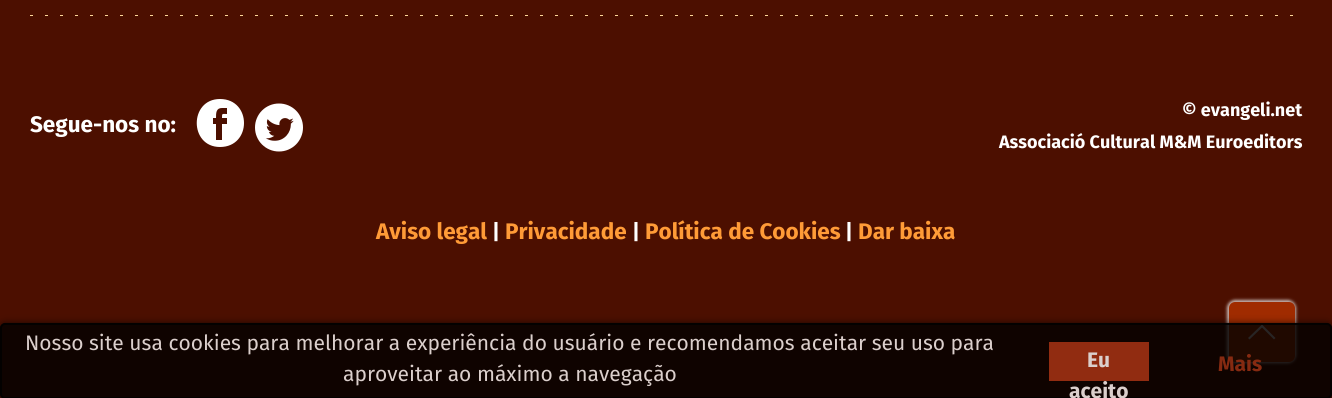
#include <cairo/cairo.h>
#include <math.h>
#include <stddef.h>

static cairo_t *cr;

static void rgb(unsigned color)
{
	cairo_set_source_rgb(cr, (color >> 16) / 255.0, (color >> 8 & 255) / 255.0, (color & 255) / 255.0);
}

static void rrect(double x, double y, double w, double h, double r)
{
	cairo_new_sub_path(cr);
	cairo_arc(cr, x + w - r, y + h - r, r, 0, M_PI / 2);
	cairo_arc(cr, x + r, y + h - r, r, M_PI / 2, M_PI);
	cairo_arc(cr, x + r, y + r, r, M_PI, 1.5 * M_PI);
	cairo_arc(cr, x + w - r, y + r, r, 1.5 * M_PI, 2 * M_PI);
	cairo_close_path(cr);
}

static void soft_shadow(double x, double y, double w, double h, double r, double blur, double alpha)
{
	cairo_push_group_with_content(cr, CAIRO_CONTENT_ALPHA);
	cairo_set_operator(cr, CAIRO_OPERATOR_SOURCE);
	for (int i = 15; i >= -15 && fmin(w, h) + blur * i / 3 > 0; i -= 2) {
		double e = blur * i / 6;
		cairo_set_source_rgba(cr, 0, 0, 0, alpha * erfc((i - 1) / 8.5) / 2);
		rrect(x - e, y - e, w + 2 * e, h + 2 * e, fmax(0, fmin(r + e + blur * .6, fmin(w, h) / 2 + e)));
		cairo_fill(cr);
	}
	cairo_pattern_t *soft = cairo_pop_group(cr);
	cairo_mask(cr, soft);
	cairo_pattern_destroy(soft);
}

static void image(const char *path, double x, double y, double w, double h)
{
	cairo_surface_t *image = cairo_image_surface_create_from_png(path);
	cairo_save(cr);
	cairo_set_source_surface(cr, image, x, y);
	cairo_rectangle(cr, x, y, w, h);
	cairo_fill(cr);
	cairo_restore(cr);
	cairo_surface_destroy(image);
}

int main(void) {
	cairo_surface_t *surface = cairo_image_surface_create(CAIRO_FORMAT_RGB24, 1332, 398);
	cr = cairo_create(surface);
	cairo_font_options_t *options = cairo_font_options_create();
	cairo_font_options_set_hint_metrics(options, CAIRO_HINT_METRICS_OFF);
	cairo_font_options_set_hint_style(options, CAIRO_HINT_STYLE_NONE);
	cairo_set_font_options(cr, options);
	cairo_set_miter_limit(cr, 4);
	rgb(0x4c0f00);
	cairo_paint(cr);
	image("img/1.png", 30, 15, 1263, 1);
	rgb(0xffffff);
	cairo_new_path(cr);
	cairo_move_to(cr, 220, 99);
	cairo_curve_to(cr, 252, 99, 252, 147, 220, 147);
	cairo_curve_to(cr, 189, 147, 189, 99, 220, 99);
	cairo_close_path(cr);
	cairo_move_to(cr, 222, 108);
	cairo_curve_to(cr, 216, 108, 216, 113, 216, 118);
	cairo_line_to(cr, 213, 118);
	cairo_line_to(cr, 213, 124);
	cairo_line_to(cr, 216, 124);
	cairo_line_to(cr, 216, 140);
	cairo_line_to(cr, 222, 140);
	cairo_line_to(cr, 222, 124);
	cairo_line_to(cr, 227, 124);
	cairo_line_to(cr, 227, 118);
	cairo_line_to(cr, 222, 118);
	cairo_curve_to(cr, 222, 113, 222, 114, 227, 114);
	cairo_line_to(cr, 227, 108);
	cairo_close_path(cr);
	cairo_fill(cr);
	image("img/2.png", 255, 103, 48, 49);
	rgb(0xc9b7b3);
	soft_shadow(1227, 300, 69, 63, 8, 1.5, 1);
	rgb(0xa02b00);
	rrect(1229, 302, 66, 60, 6);
	cairo_fill(cr);
	rgb(0xc9b7b3);
	cairo_new_path(cr);
	cairo_move_to(cr, 1275.5, 338);
	cairo_line_to(cr, 1274, 339.5);
	cairo_line_to(cr, 1262, 327.5);
	cairo_line_to(cr, 1249.5, 339.5);
	cairo_line_to(cr, 1248, 338);
	cairo_line_to(cr, 1262, 324.5);
	cairo_close_path(cr);
	cairo_fill(cr);
	cairo_save(cr);
	cairo_set_fill_rule(cr, CAIRO_FILL_RULE_EVEN_ODD);
	cairo_new_path(cr);
	cairo_move_to(cr, 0, 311);
	cairo_line_to(cr, 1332, 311);
	cairo_line_to(cr, 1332, 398);
	cairo_line_to(cr, 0, 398);
	cairo_close_path(cr);
	cairo_move_to(cr, 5, 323);
	cairo_line_to(cr, 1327, 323);
	cairo_curve_to(cr, 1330, 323, 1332, 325, 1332, 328);
	cairo_line_to(cr, 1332, 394);
	cairo_curve_to(cr, 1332, 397, 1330, 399, 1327, 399);
	cairo_line_to(cr, 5, 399);
	cairo_curve_to(cr, 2, 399, 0, 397, 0, 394);
	cairo_line_to(cr, 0, 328);
	cairo_curve_to(cr, 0, 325, 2, 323, 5, 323);
	cairo_close_path(cr);
	cairo_clip(cr);
	rgb(0x000000);
	soft_shadow(0, 324, 1332, 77, 5, 4, 0.8);
	cairo_restore(cr);
	cairo_set_source_rgba(cr, 0, 0, 0, 0.8);
	rrect(0, 323, 1332, 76, 5);
	cairo_fill(cr);
	rrect(1, 324, 1330, 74, 4);
	cairo_stroke(cr);
	rgb(0x912c11);
	cairo_rectangle(cr, 1049, 342, 100, 39);
	cairo_fill(cr);
	cairo_select_font_face(cr, "Fira Sans", CAIRO_FONT_SLANT_NORMAL, CAIRO_FONT_WEIGHT_BOLD);
	cairo_set_font_size(cr, 22.5);
	rgb(0xffffff);
	cairo_move_to(cr, 30, 132);
	cairo_show_text(cr, "Segue-nos no:");
	cairo_set_font_size(cr, 18);
	cairo_move_to(cr, 1182, 116);
	cairo_show_text(cr, "© evangeli.net");
	cairo_move_to(cr, 999, 148);
	cairo_show_text(cr, "Associació Cultural M&M Euroeditors");
	cairo_set_font_size(cr, 22.5);
	rgb(0xff9b37);
	cairo_move_to(cr, 376, 239);
	cairo_show_text(cr, "Aviso legal");
	cairo_set_font_size(cr, 21);
	rgb(0xffffff);
	cairo_move_to(cr, 492, 239);
	cairo_show_text(cr, "|");
	cairo_set_font_size(cr, 22.5);
	rgb(0xff9b37);
	cairo_move_to(cr, 505, 239);
	cairo_show_text(cr, "Privacidade");
	cairo_set_font_size(cr, 21);
	rgb(0xffffff);
	cairo_move_to(cr, 632, 239);
	cairo_show_text(cr, "|");
	cairo_set_font_size(cr, 22.5);
	rgb(0xff9b37);
	cairo_move_to(cr, 645, 239);
	cairo_show_text(cr, "Política de Cookies");
	cairo_set_font_size(cr, 21);
	rgb(0xffffff);
	cairo_move_to(cr, 845, 239);
	cairo_show_text(cr, "|");
	cairo_set_font_size(cr, 22.5);
	rgb(0xff9b37);
	cairo_move_to(cr, 858, 239);
	cairo_show_text(cr, "Dar baixa");
	cairo_select_font_face(cr, "Fira Sans", CAIRO_FONT_SLANT_NORMAL, CAIRO_FONT_WEIGHT_NORMAL);
	cairo_set_font_size(cr, 21);
	rgb(0xdbcfcc);
	cairo_move_to(cr, 25, 350);
	cairo_show_text(cr, "Nosso site usa cookies para melhorar a experiência do usuário e recomendamos aceitar seu uso para");
	cairo_move_to(cr, 343, 381);
	cairo_show_text(cr, "aproveitar ao máximo a navegação");
	cairo_select_font_face(cr, "Fira Sans", CAIRO_FONT_SLANT_NORMAL, CAIRO_FONT_WEIGHT_BOLD);
	cairo_move_to(cr, 1087, 367);
	cairo_show_text(cr, "Eu");
	cairo_move_to(cr, 1069, 398);
	cairo_show_text(cr, "aceito");
	rgb(0x862a11);
	cairo_move_to(cr, 1218, 371);
	cairo_show_text(cr, "Mais");
	cairo_surface_write_to_png(surface, "page.png");
	cairo_font_options_destroy(options);
	cairo_destroy(cr);
	cairo_surface_destroy(surface);
	return 0;
}
